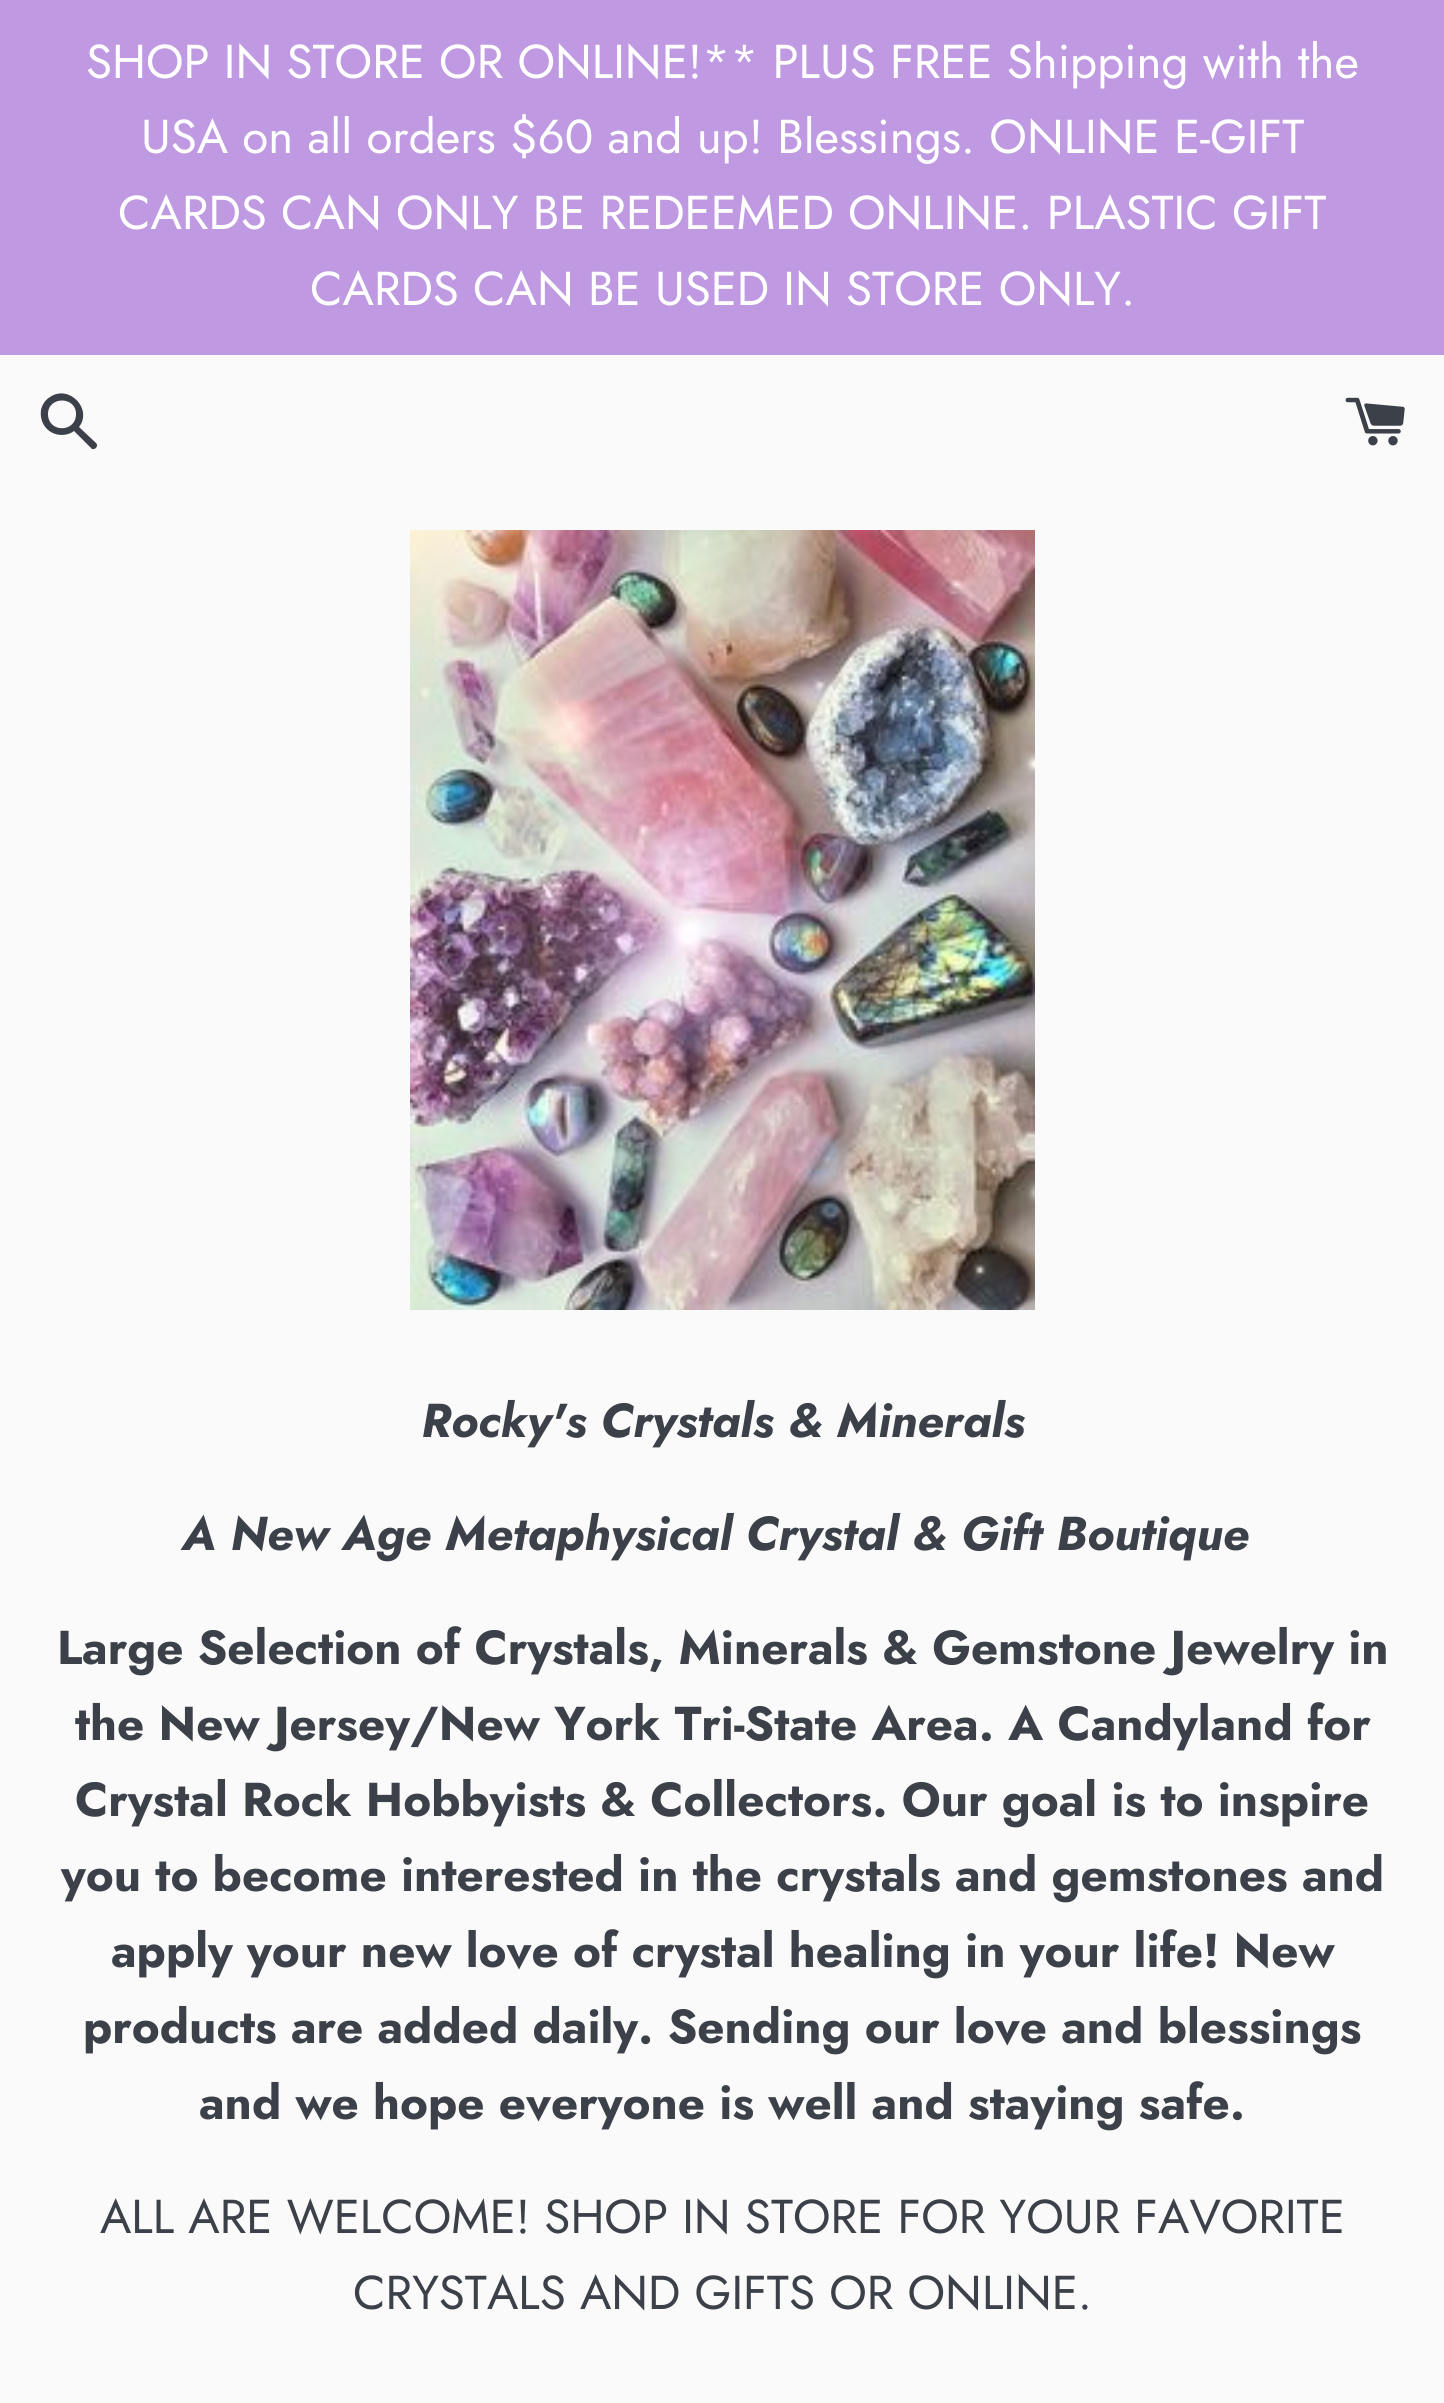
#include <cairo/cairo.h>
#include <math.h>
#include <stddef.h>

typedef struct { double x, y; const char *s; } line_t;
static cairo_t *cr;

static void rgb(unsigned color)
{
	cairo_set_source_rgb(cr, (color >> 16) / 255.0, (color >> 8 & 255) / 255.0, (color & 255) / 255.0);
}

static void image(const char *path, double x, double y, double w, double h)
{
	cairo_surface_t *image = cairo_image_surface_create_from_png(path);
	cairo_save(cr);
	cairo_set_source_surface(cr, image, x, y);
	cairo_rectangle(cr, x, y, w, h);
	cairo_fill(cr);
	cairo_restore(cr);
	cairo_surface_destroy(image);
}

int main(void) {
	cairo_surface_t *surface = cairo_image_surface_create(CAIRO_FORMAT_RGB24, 1444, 2403);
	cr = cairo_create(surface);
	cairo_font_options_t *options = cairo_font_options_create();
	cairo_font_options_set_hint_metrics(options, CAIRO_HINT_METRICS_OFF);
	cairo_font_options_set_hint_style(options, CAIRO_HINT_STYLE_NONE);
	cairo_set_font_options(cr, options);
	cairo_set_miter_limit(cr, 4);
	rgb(0xfafafa);
	cairo_paint(cr);
	rgb(0xbf99e1);
	cairo_rectangle(cr, 0, 0, 1444, 355);
	cairo_fill(cr);
	rgb(0x3c4049);
	cairo_new_path(cr);
	cairo_move_to(cr, 96, 443);
	cairo_line_to(cr, 79, 427);
	cairo_curve_to(cr, 93, 409, 69, 384, 50, 397);
	cairo_curve_to(cr, 45, 400, 42, 405, 41, 410);
	cairo_curve_to(cr, 40, 417, 42, 424, 47, 429);
	cairo_curve_to(cr, 54, 436, 66, 437, 74, 431);
	cairo_line_to(cr, 92, 449);
	cairo_curve_to(cr, 95, 450, 99, 446, 96, 443);
	cairo_close_path(cr);
	cairo_move_to(cr, 48, 414);
	cairo_curve_to(cr, 48, 396, 76, 396, 76, 414);
	cairo_curve_to(cr, 76, 433, 48, 433, 48, 414);
	cairo_close_path(cr);
	cairo_fill(cr);
	image("img/1.png", 1345, 397, 60, 49);
	image("img/2.png", 410, 530, 625, 780);
	cairo_select_font_face(cr, "Jost", CAIRO_FONT_SLANT_NORMAL, CAIRO_FONT_WEIGHT_NORMAL);
	cairo_set_font_size(cr, 47.5);
	rgb(0xffffff);
	{
		static const line_t items[] = {
			{86, 78, "SHOP IN STORE OR ONLINE!** PLUS FREE Shipping with the"},
			{141, 153, "USA on all orders $60 and up! Blessings. ONLINE E-GIFT"},
			{118, 229, "CARDS CAN ONLY BE REDEEMED ONLINE. PLASTIC GIFT"},
			{310, 305, "CARDS CAN BE USED IN STORE ONLY."},
		};
		for (size_t i = 0; i < sizeof items / sizeof *items; i++) {
			cairo_move_to(cr, items[i].x, items[i].y);
			cairo_show_text(cr, items[i].s);
		}
	}
	cairo_select_font_face(cr, "Jost", CAIRO_FONT_SLANT_ITALIC, CAIRO_FONT_WEIGHT_BOLD);
	rgb(0x3c4049);
	cairo_move_to(cr, 421, 1437);
	cairo_show_text(cr, "Rocky's Crystals & Minerals");
	cairo_move_to(cr, 182, 1550);
	cairo_show_text(cr, "A New Age Metaphysical Crystal & Gift Boutique");
	cairo_select_font_face(cr, "Jost", CAIRO_FONT_SLANT_NORMAL, CAIRO_FONT_WEIGHT_BOLD);
	{
		static const line_t items[] = {
			{57, 1664, "Large Selection of Crystals, Minerals & Gemstone Jewelry in"},
			{75, 1740, "the New Jersey/New York Tri-State Area. A Candyland for"},
			{75, 1816, "Crystal Rock Hobbyists & Collectors. Our goal is to inspire"},
			{61, 1891, "you to become interested in the crystals and gemstones and"},
			{111, 1967, "apply your new love of crystal healing in your life! New"},
			{83, 2043, "products are added daily. Sending our love and blessings"},
			{199, 2119, "and we hope everyone is well and staying safe."},
		};
		for (size_t i = 0; i < sizeof items / sizeof *items; i++) {
			cairo_move_to(cr, items[i].x, items[i].y);
			cairo_show_text(cr, items[i].s);
		}
	}
	cairo_select_font_face(cr, "Jost", CAIRO_FONT_SLANT_NORMAL, CAIRO_FONT_WEIGHT_NORMAL);
	cairo_move_to(cr, 100, 2233);
	cairo_show_text(cr, "ALL ARE WELCOME! SHOP IN STORE FOR YOUR FAVORITE");
	cairo_move_to(cr, 353, 2309);
	cairo_show_text(cr, "CRYSTALS AND GIFTS OR ONLINE.");
	cairo_surface_write_to_png(surface, "page.png");
	cairo_font_options_destroy(options);
	cairo_destroy(cr);
	cairo_surface_destroy(surface);
	return 0;
}
